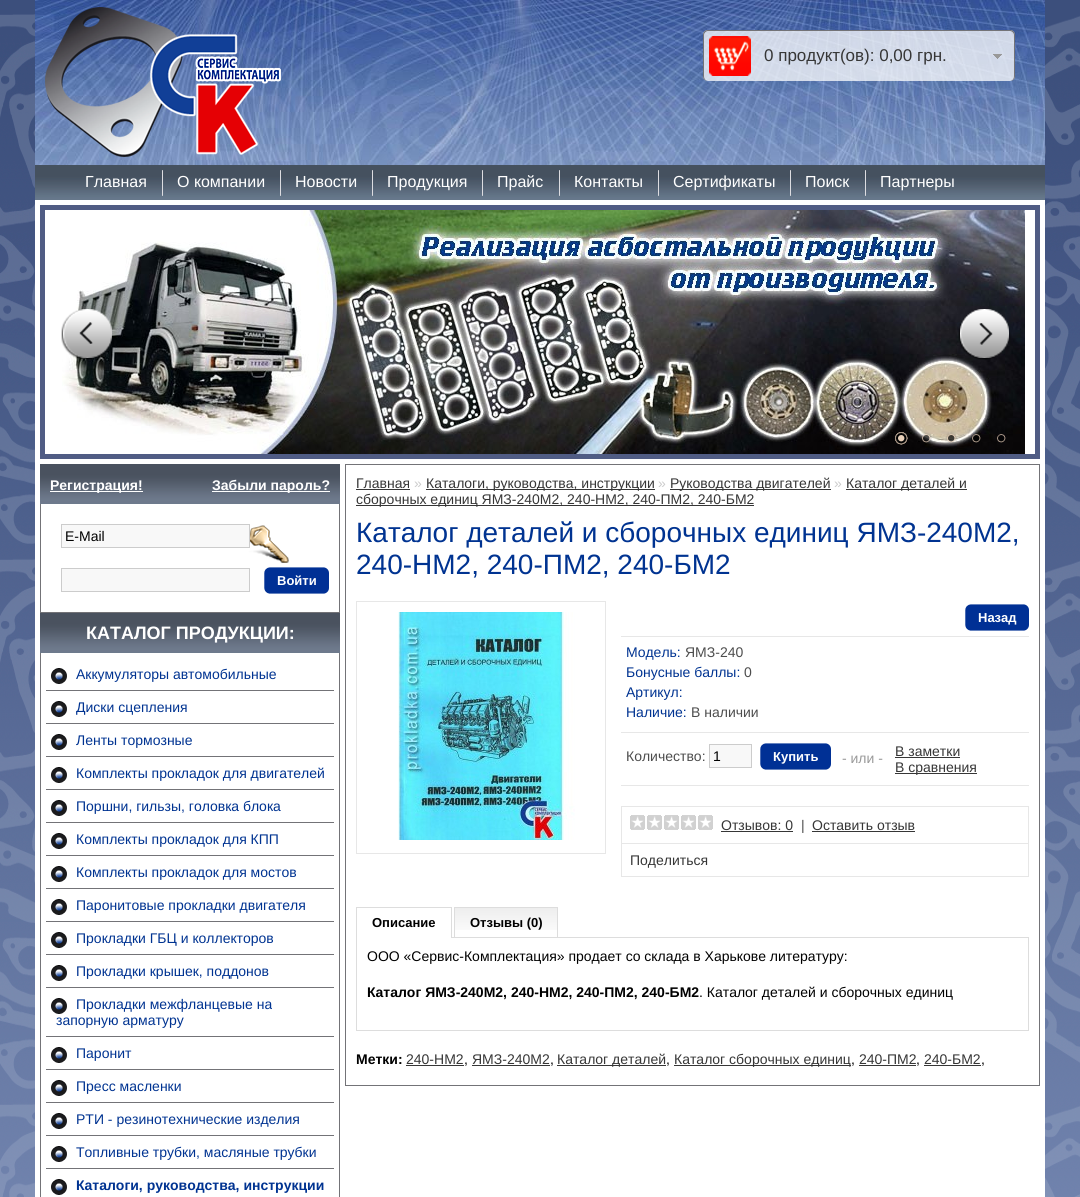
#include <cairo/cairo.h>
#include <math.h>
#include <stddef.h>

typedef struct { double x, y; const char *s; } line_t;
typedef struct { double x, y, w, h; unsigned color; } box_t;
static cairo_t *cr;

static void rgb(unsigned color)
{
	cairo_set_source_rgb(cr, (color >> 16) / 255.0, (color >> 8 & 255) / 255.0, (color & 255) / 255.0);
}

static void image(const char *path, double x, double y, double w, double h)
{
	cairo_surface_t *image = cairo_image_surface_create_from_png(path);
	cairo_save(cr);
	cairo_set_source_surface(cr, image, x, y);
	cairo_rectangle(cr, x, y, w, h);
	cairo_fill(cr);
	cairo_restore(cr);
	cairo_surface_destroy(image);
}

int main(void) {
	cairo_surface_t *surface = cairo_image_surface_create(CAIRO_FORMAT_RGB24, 1080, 1197);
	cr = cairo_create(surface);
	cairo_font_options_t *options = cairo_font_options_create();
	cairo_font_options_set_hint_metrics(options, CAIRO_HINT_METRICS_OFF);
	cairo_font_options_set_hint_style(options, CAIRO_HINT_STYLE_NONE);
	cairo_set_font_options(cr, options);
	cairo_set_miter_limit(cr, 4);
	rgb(0xffffff);
	cairo_paint(cr);
	image("img/1.png", 0, 0, 1080, 1197);
	image("img/2.png", 0, 14, 1080, 1183);
	image("img/3.png", 35, 0, 1010, 165);
	image("img/4.png", 45, 7, 236, 150);
	image("img/5.png", 703, 30, 312, 51);
	rgb(0x737377);
	cairo_set_fill_rule(cr, CAIRO_FILL_RULE_EVEN_ODD);
	cairo_new_path(cr);
	cairo_move_to(cr, 708, 30);
	cairo_line_to(cr, 1010, 30);
	cairo_curve_to(cr, 1013, 30, 1015, 32, 1015, 35);
	cairo_line_to(cr, 1015, 76);
	cairo_curve_to(cr, 1015, 79, 1013, 81, 1010, 81);
	cairo_line_to(cr, 708, 81);
	cairo_curve_to(cr, 705, 81, 703, 79, 703, 76);
	cairo_line_to(cr, 703, 35);
	cairo_curve_to(cr, 703, 32, 705, 30, 708, 30);
	cairo_close_path(cr);
	cairo_move_to(cr, 708, 31);
	cairo_line_to(cr, 1010, 31);
	cairo_curve_to(cr, 1012, 31, 1014, 33, 1014, 35);
	cairo_line_to(cr, 1014, 76);
	cairo_curve_to(cr, 1014, 79, 1012, 81, 1010, 81);
	cairo_line_to(cr, 708, 81);
	cairo_curve_to(cr, 706, 81, 704, 79, 704, 76);
	cairo_line_to(cr, 704, 35);
	cairo_curve_to(cr, 704, 33, 706, 31, 708, 31);
	cairo_close_path(cr);
	cairo_fill(cr);
	image("img/6.png", 709, 36, 42, 40);
	image("img/7.png", 993, 54, 9, 5);
	rgb(0xffffff);
	cairo_rectangle(cr, 35, 200, 1010, 997);
	cairo_fill(cr);
	image("img/8.png", 35, 165, 1010, 35);
	image("img/9.png", 162, 170, 1, 26);
	image("img/9.png", 280, 170, 1, 26);
	image("img/9.png", 372, 170, 1, 26);
	image("img/9.png", 482, 170, 1, 26);
	image("img/9.png", 559, 170, 1, 26);
	image("img/9.png", 658, 170, 1, 26);
	image("img/9.png", 790, 170, 1, 26);
	image("img/9.png", 865, 170, 1, 26);
	cairo_rectangle(cr, 42.5, 207.5, 995, 249);
	rgb(0x505c84);
	cairo_set_line_width(cr, 5);
	cairo_stroke(cr);
	image("img/10.png", 62, 210, 963, 244);
	image("img/11.png", 61, 309, 51, 51);
	image("img/12.png", 958, 309, 51, 51);
	image("img/13.png", 894, 432, 14, 13);
	image("img/14.png", 921, 432, 11, 11);
	image("img/15.png", 945, 432, 12, 12);
	image("img/16.png", 971, 432, 10, 11);
	image("img/17.png", 997, 434, 9, 9);
	image("img/18.png", 40, 464, 300, 40);
	{
		static const box_t items[] = {
			{50, 491, 93, 1, 0xffffff},
			{212, 491, 118, 1, 0xffffff},
			{339, 504, 1, 109, 0x737377},
			{40, 612, 300, 1, 0x737377},
			{40, 504, 1, 109, 0x737377},
		};
		for (size_t i = 0; i < sizeof items / sizeof *items; i++) {
			rgb(items[i].color);
			cairo_rectangle(cr, items[i].x, items[i].y, items[i].w, items[i].h);
			cairo_fill(cr);
		}
	}
	image("img/19.png", 248, 525, 41, 38);
	rgb(0xf8f8f8);
	cairo_rectangle(cr, 61.5, 524.5, 188, 23);
	cairo_fill_preserve(cr);
	rgb(0xcccccc);
	cairo_set_line_width(cr, 1);
	cairo_stroke(cr);
	rgb(0xf8f8f8);
	cairo_rectangle(cr, 61.5, 568.5, 188, 23);
	cairo_fill_preserve(cr);
	rgb(0xcccccc);
	cairo_stroke(cr);
	image("img/20.png", 264, 567, 7, 27);
	image("img/21.png", 271, 567, 58, 27);
	image("img/18.png", 40, 613, 300, 40);
	rgb(0x737377);
	cairo_rectangle(cr, 339, 653, 1, 544);
	cairo_fill(cr);
	cairo_rectangle(cr, 40, 653, 1, 544);
	cairo_fill(cr);
	image("img/22.png", 51, 668, 16, 16);
	image("img/22.png", 51, 701, 16, 16);
	cairo_rectangle(cr, 46, 690, 288, 1);
	cairo_fill(cr);
	image("img/22.png", 51, 734, 16, 16);
	cairo_rectangle(cr, 46, 723, 288, 1);
	cairo_fill(cr);
	image("img/22.png", 51, 767, 16, 16);
	cairo_rectangle(cr, 46, 756, 288, 1);
	cairo_fill(cr);
	image("img/22.png", 51, 800, 16, 16);
	cairo_rectangle(cr, 46, 789, 288, 1);
	cairo_fill(cr);
	image("img/22.png", 51, 833, 16, 16);
	cairo_rectangle(cr, 46, 822, 288, 1);
	cairo_fill(cr);
	image("img/22.png", 51, 866, 16, 16);
	cairo_rectangle(cr, 46, 855, 288, 1);
	cairo_fill(cr);
	image("img/22.png", 51, 899, 16, 16);
	cairo_rectangle(cr, 46, 888, 288, 1);
	cairo_fill(cr);
	image("img/22.png", 51, 932, 16, 16);
	cairo_rectangle(cr, 46, 921, 288, 1);
	cairo_fill(cr);
	image("img/22.png", 51, 965, 16, 16);
	cairo_rectangle(cr, 46, 954, 288, 1);
	cairo_fill(cr);
	image("img/22.png", 51, 998, 16, 16);
	cairo_rectangle(cr, 46, 987, 288, 1);
	cairo_fill(cr);
	image("img/22.png", 51, 1047, 16, 16);
	cairo_rectangle(cr, 46, 1036, 288, 1);
	cairo_fill(cr);
	image("img/22.png", 51, 1080, 16, 16);
	cairo_rectangle(cr, 46, 1069, 288, 1);
	cairo_fill(cr);
	image("img/22.png", 51, 1113, 16, 16);
	cairo_rectangle(cr, 46, 1102, 288, 1);
	cairo_fill(cr);
	image("img/22.png", 51, 1146, 16, 16);
	cairo_rectangle(cr, 46, 1135, 288, 1);
	cairo_fill(cr);
	image("img/22.png", 51, 1179, 16, 16);
	cairo_rectangle(cr, 46, 1168, 288, 1);
	cairo_fill(cr);
	cairo_rectangle(cr, 345.5, 464.5, 694, 621);
	cairo_stroke(cr);
	{
		static const box_t items[] = {
			{356, 489, 54, 1, 0x363636},
			{426, 489, 229, 1, 0x363636},
			{670, 489, 161, 1, 0x363636},
			{846, 489, 121, 1, 0x363636},
			{356, 505, 398, 1, 0x363636},
		};
		for (size_t i = 0; i < sizeof items / sizeof *items; i++) {
			rgb(items[i].color);
			cairo_rectangle(cr, items[i].x, items[i].y, items[i].w, items[i].h);
			cairo_fill(cr);
		}
	}
	cairo_rectangle(cr, 356.5, 601.5, 249, 252);
	rgb(0xe7e7e7);
	cairo_stroke(cr);
	image("img/23.png", 398, 612, 177, 228);
	image("img/20.png", 965, 604, 7, 27);
	image("img/24.png", 972, 604, 57, 27);
	{
		static const box_t items[] = {
			{621, 636, 408, 1, 0xe7e7e7},
			{621, 732, 408, 1, 0xe7e7e7},
			{621, 785, 408, 1, 0xe7e7e7},
		};
		for (size_t i = 0; i < sizeof items / sizeof *items; i++) {
			rgb(items[i].color);
			cairo_rectangle(cr, items[i].x, items[i].y, items[i].w, items[i].h);
			cairo_fill(cr);
		}
	}
	rgb(0xf8f8f8);
	cairo_rectangle(cr, 709.5, 744.5, 42, 23);
	cairo_fill_preserve(cr);
	rgb(0xcccccc);
	cairo_stroke(cr);
	image("img/20.png", 760, 743, 7, 27);
	image("img/25.png", 767, 743, 64, 27);
	{
		static const box_t items[] = {
			{895, 757, 65, 1, 0x363636},
			{895, 773, 82, 1, 0x363636},
			{621, 806, 408, 1, 0xe7e7e7},
			{1028, 806, 1, 71, 0xe7e7e7},
			{621, 806, 1, 71, 0xe7e7e7},
			{622, 843, 406, 1, 0xe7e7e7},
		};
		for (size_t i = 0; i < sizeof items / sizeof *items; i++) {
			rgb(items[i].color);
			cairo_rectangle(cr, items[i].x, items[i].y, items[i].w, items[i].h);
			cairo_fill(cr);
		}
	}
	image("img/26.png", 630, 815, 83, 15);
	{
		static const box_t items[] = {
			{721, 831, 72, 1, 0x363636},
			{812, 831, 103, 1, 0x363636},
			{622, 876, 406, 1, 0xe7e7e7},
			{452, 937, 577, 1, 0xdddddd},
			{356, 907, 96, 1, 0xdddddd},
			{451, 907, 1, 31, 0xdddddd},
			{356, 907, 1, 31, 0xdddddd},
		};
		for (size_t i = 0; i < sizeof items / sizeof *items; i++) {
			rgb(items[i].color);
			cairo_rectangle(cr, items[i].x, items[i].y, items[i].w, items[i].h);
			cairo_fill(cr);
		}
	}
	image("img/27.png", 455, 908, 102, 22);
	{
		static const box_t items[] = {
			{454, 907, 104, 1, 0xdddddd},
			{557, 907, 1, 30, 0xdddddd},
			{454, 907, 1, 30, 0xdddddd},
			{1028, 938, 1, 93, 0xdddddd},
			{356, 1030, 673, 1, 0xdddddd},
			{356, 938, 1, 93, 0xdddddd},
			{406, 1065, 58, 1, 0x363636},
			{472, 1065, 78, 1, 0x363636},
			{557, 1065, 109, 1, 0x363636},
			{674, 1065, 177, 1, 0x363636},
			{859, 1065, 57, 1, 0x363636},
			{924, 1065, 57, 1, 0x363636},
		};
		for (size_t i = 0; i < sizeof items / sizeof *items; i++) {
			rgb(items[i].color);
			cairo_rectangle(cr, items[i].x, items[i].y, items[i].w, items[i].h);
			cairo_fill(cr);
		}
	}
	cairo_select_font_face(cr, "Liberation Sans", CAIRO_FONT_SLANT_NORMAL, CAIRO_FONT_WEIGHT_NORMAL);
	cairo_set_font_size(cr, 17);
	cairo_move_to(cr, 764, 61);
	cairo_show_text(cr, "0 продукт(ов): 0,00 грн.");
	cairo_set_font_size(cr, 16);
	rgb(0xffffff);
	{
		static const line_t items[] = {
			{85, 187, "Главная"},
			{177, 187, "О компании"},
			{295, 187, "Новости"},
			{387, 187, "Продукция"},
			{497, 187, "Прайс"},
			{574, 187, "Контакты"},
			{673, 187, "Сертификаты"},
			{805, 187, "Поиск"},
			{880, 187, "Партнеры"},
		};
		for (size_t i = 0; i < sizeof items / sizeof *items; i++) {
			cairo_move_to(cr, items[i].x, items[i].y);
			cairo_show_text(cr, items[i].s);
		}
	}
	cairo_select_font_face(cr, "Liberation Sans", CAIRO_FONT_SLANT_NORMAL, CAIRO_FONT_WEIGHT_BOLD);
	cairo_set_font_size(cr, 14);
	cairo_move_to(cr, 50, 490);
	cairo_show_text(cr, "Регистрация!");
	cairo_move_to(cr, 212, 490);
	cairo_show_text(cr, "Забыли пароль?");
	cairo_select_font_face(cr, "Liberation Sans", CAIRO_FONT_SLANT_NORMAL, CAIRO_FONT_WEIGHT_NORMAL);
	rgb(0x000000);
	cairo_move_to(cr, 65, 541);
	cairo_show_text(cr, "E-Mail");
	cairo_select_font_face(cr, "Liberation Sans", CAIRO_FONT_SLANT_NORMAL, CAIRO_FONT_WEIGHT_BOLD);
	cairo_set_font_size(cr, 13);
	rgb(0xffffff);
	cairo_move_to(cr, 277, 585);
	cairo_show_text(cr, "Войти");
	cairo_set_font_size(cr, 18);
	cairo_move_to(cr, 86, 639);
	cairo_show_text(cr, "КАТАЛОГ ПРОДУКЦИИ:");
	cairo_select_font_face(cr, "Liberation Sans", CAIRO_FONT_SLANT_NORMAL, CAIRO_FONT_WEIGHT_NORMAL);
	cairo_set_font_size(cr, 14);
	rgb(0x003391);
	{
		static const line_t items[] = {
			{76, 679, "Аккумуляторы автомобильные"},
			{76, 712, "Диски сцепления"},
			{76, 745, "Ленты тормозные"},
			{76, 778, "Комплекты прокладок для двигателей"},
			{76, 811, "Поршни, гильзы, головка блока"},
			{76, 844, "Комплекты прокладок для КПП"},
			{76, 877, "Комплекты прокладок для мостов"},
			{76, 910, "Паронитовые прокладки двигателя"},
			{76, 943, "Прокладки ГБЦ и коллекторов"},
			{76, 976, "Прокладки крышек, поддонов"},
			{76, 1009, "Прокладки межфланцевые на"},
			{56, 1025, "запорную арматуру"},
			{76, 1058, "Паронит"},
			{76, 1091, "Пресс масленки"},
			{76, 1124, "РТИ - резинотехнические изделия"},
			{76, 1157, "Топливные трубки, масляные трубки"},
		};
		for (size_t i = 0; i < sizeof items / sizeof *items; i++) {
			cairo_move_to(cr, items[i].x, items[i].y);
			cairo_show_text(cr, items[i].s);
		}
	}
	cairo_select_font_face(cr, "Liberation Sans", CAIRO_FONT_SLANT_NORMAL, CAIRO_FONT_WEIGHT_BOLD);
	cairo_move_to(cr, 76, 1190);
	cairo_show_text(cr, "Каталоги, руководства, инструкции");
	cairo_select_font_face(cr, "Liberation Sans", CAIRO_FONT_SLANT_NORMAL, CAIRO_FONT_WEIGHT_NORMAL);
	rgb(0x363636);
	cairo_move_to(cr, 356, 488);
	cairo_show_text(cr, "Главная");
	rgb(0xcccccc);
	cairo_move_to(cr, 414, 488);
	cairo_show_text(cr, "»");
	rgb(0x363636);
	cairo_move_to(cr, 426, 488);
	cairo_show_text(cr, "Каталоги, руководства, инструкции");
	rgb(0xcccccc);
	cairo_move_to(cr, 658, 488);
	cairo_show_text(cr, "»");
	rgb(0x363636);
	cairo_move_to(cr, 670, 488);
	cairo_show_text(cr, "Руководства двигателей");
	rgb(0xcccccc);
	cairo_move_to(cr, 834, 488);
	cairo_show_text(cr, "»");
	rgb(0x363636);
	cairo_move_to(cr, 846, 488);
	cairo_show_text(cr, "Каталог деталей и");
	cairo_move_to(cr, 356, 504);
	cairo_show_text(cr, "сборочных единиц ЯМЗ-240М2, 240-НМ2, 240-ПМ2, 240-БМ2");
	cairo_set_font_size(cr, 28);
	rgb(0x003391);
	cairo_move_to(cr, 356, 542);
	cairo_show_text(cr, "Каталог деталей и сборочных единиц ЯМЗ-240М2,");
	cairo_move_to(cr, 356, 574);
	cairo_show_text(cr, "240-НМ2, 240-ПМ2, 240-БМ2");
	cairo_select_font_face(cr, "Liberation Sans", CAIRO_FONT_SLANT_NORMAL, CAIRO_FONT_WEIGHT_BOLD);
	cairo_set_font_size(cr, 13);
	rgb(0xffffff);
	cairo_move_to(cr, 978, 622);
	cairo_show_text(cr, "Назад");
	cairo_select_font_face(cr, "Liberation Sans", CAIRO_FONT_SLANT_NORMAL, CAIRO_FONT_WEIGHT_NORMAL);
	cairo_set_font_size(cr, 14);
	rgb(0x003391);
	cairo_move_to(cr, 626, 657);
	cairo_show_text(cr, "Модель:");
	rgb(0x4d4d4d);
	cairo_move_to(cr, 685, 657);
	cairo_show_text(cr, "ЯМЗ-240");
	rgb(0x003391);
	cairo_move_to(cr, 626, 677);
	cairo_show_text(cr, "Бонусные баллы:");
	rgb(0x4d4d4d);
	cairo_move_to(cr, 744, 677);
	cairo_show_text(cr, "0");
	rgb(0x003391);
	cairo_move_to(cr, 626, 697);
	cairo_show_text(cr, "Артикул:");
	cairo_move_to(cr, 626, 717);
	cairo_show_text(cr, "Наличие:");
	rgb(0x4d4d4d);
	cairo_move_to(cr, 691, 717);
	cairo_show_text(cr, "В наличии");
	cairo_move_to(cr, 626, 761);
	cairo_show_text(cr, "Количество:");
	rgb(0x000000);
	cairo_move_to(cr, 713, 761);
	cairo_show_text(cr, "1");
	cairo_select_font_face(cr, "Liberation Sans", CAIRO_FONT_SLANT_NORMAL, CAIRO_FONT_WEIGHT_BOLD);
	cairo_set_font_size(cr, 13);
	rgb(0xffffff);
	cairo_move_to(cr, 773, 761);
	cairo_show_text(cr, "Купить");
	cairo_select_font_face(cr, "Liberation Sans", CAIRO_FONT_SLANT_NORMAL, CAIRO_FONT_WEIGHT_NORMAL);
	cairo_set_font_size(cr, 14);
	rgb(0x999999);
	cairo_move_to(cr, 842, 763);
	cairo_show_text(cr, "- или -");
	rgb(0x363636);
	{
		static const line_t items[] = {
			{895, 756, "В заметки"},
			{895, 772, "В сравнения"},
			{721, 830, "Отзывов: 0"},
		};
		for (size_t i = 0; i < sizeof items / sizeof *items; i++) {
			cairo_move_to(cr, items[i].x, items[i].y);
			cairo_show_text(cr, items[i].s);
		}
	}
	rgb(0x4d4d4d);
	cairo_move_to(cr, 801, 830);
	cairo_show_text(cr, "|");
	rgb(0x363636);
	cairo_move_to(cr, 812, 830);
	cairo_show_text(cr, "Оставить отзыв");
	cairo_move_to(cr, 630, 865);
	cairo_show_text(cr, "Поделиться");
	cairo_select_font_face(cr, "Liberation Sans", CAIRO_FONT_SLANT_NORMAL, CAIRO_FONT_WEIGHT_BOLD);
	cairo_set_font_size(cr, 13);
	rgb(0x000000);
	cairo_move_to(cr, 372, 927);
	cairo_show_text(cr, "Описание");
	cairo_move_to(cr, 470, 927);
	cairo_show_text(cr, "Отзывы (0)");
	cairo_select_font_face(cr, "Liberation Sans", CAIRO_FONT_SLANT_NORMAL, CAIRO_FONT_WEIGHT_NORMAL);
	cairo_set_font_size(cr, 14);
	cairo_move_to(cr, 367, 961);
	cairo_show_text(cr, "ООО «Сервис-Комплектация» продает со склада в Харькове литературу:");
	cairo_select_font_face(cr, "Liberation Sans", CAIRO_FONT_SLANT_NORMAL, CAIRO_FONT_WEIGHT_BOLD);
	cairo_move_to(cr, 367, 997);
	cairo_show_text(cr, "Каталог ЯМЗ-240М2, 240-НМ2, 240-ПМ2, 240-БМ2");
	cairo_select_font_face(cr, "Liberation Sans", CAIRO_FONT_SLANT_NORMAL, CAIRO_FONT_WEIGHT_NORMAL);
	cairo_move_to(cr, 699, 997);
	cairo_show_text(cr, ". Каталог деталей и сборочных единиц");
	cairo_select_font_face(cr, "Liberation Sans", CAIRO_FONT_SLANT_NORMAL, CAIRO_FONT_WEIGHT_BOLD);
	cairo_move_to(cr, 356, 1064);
	cairo_show_text(cr, "Метки:");
	cairo_select_font_face(cr, "Liberation Sans", CAIRO_FONT_SLANT_NORMAL, CAIRO_FONT_WEIGHT_NORMAL);
	rgb(0x363636);
	cairo_move_to(cr, 406, 1064);
	cairo_show_text(cr, "240-НМ2");
	rgb(0x000000);
	cairo_move_to(cr, 464, 1064);
	cairo_show_text(cr, ",");
	rgb(0x363636);
	cairo_move_to(cr, 472, 1064);
	cairo_show_text(cr, "ЯМЗ-240М2");
	rgb(0x000000);
	cairo_move_to(cr, 550, 1064);
	cairo_show_text(cr, ",");
	rgb(0x363636);
	cairo_move_to(cr, 557, 1064);
	cairo_show_text(cr, "Каталог деталей");
	rgb(0x000000);
	cairo_move_to(cr, 666, 1064);
	cairo_show_text(cr, ",");
	rgb(0x363636);
	cairo_move_to(cr, 674, 1064);
	cairo_show_text(cr, "Каталог сборочных единиц");
	rgb(0x000000);
	cairo_move_to(cr, 851, 1064);
	cairo_show_text(cr, ",");
	rgb(0x363636);
	cairo_move_to(cr, 859, 1064);
	cairo_show_text(cr, "240-ПМ2");
	rgb(0x000000);
	cairo_move_to(cr, 916, 1064);
	cairo_show_text(cr, ",");
	rgb(0x363636);
	cairo_move_to(cr, 924, 1064);
	cairo_show_text(cr, "240-БМ2");
	rgb(0x000000);
	cairo_move_to(cr, 981, 1064);
	cairo_show_text(cr, ",");
	cairo_surface_write_to_png(surface, "page.png");
	cairo_font_options_destroy(options);
	cairo_destroy(cr);
	cairo_surface_destroy(surface);
	return 0;
}
